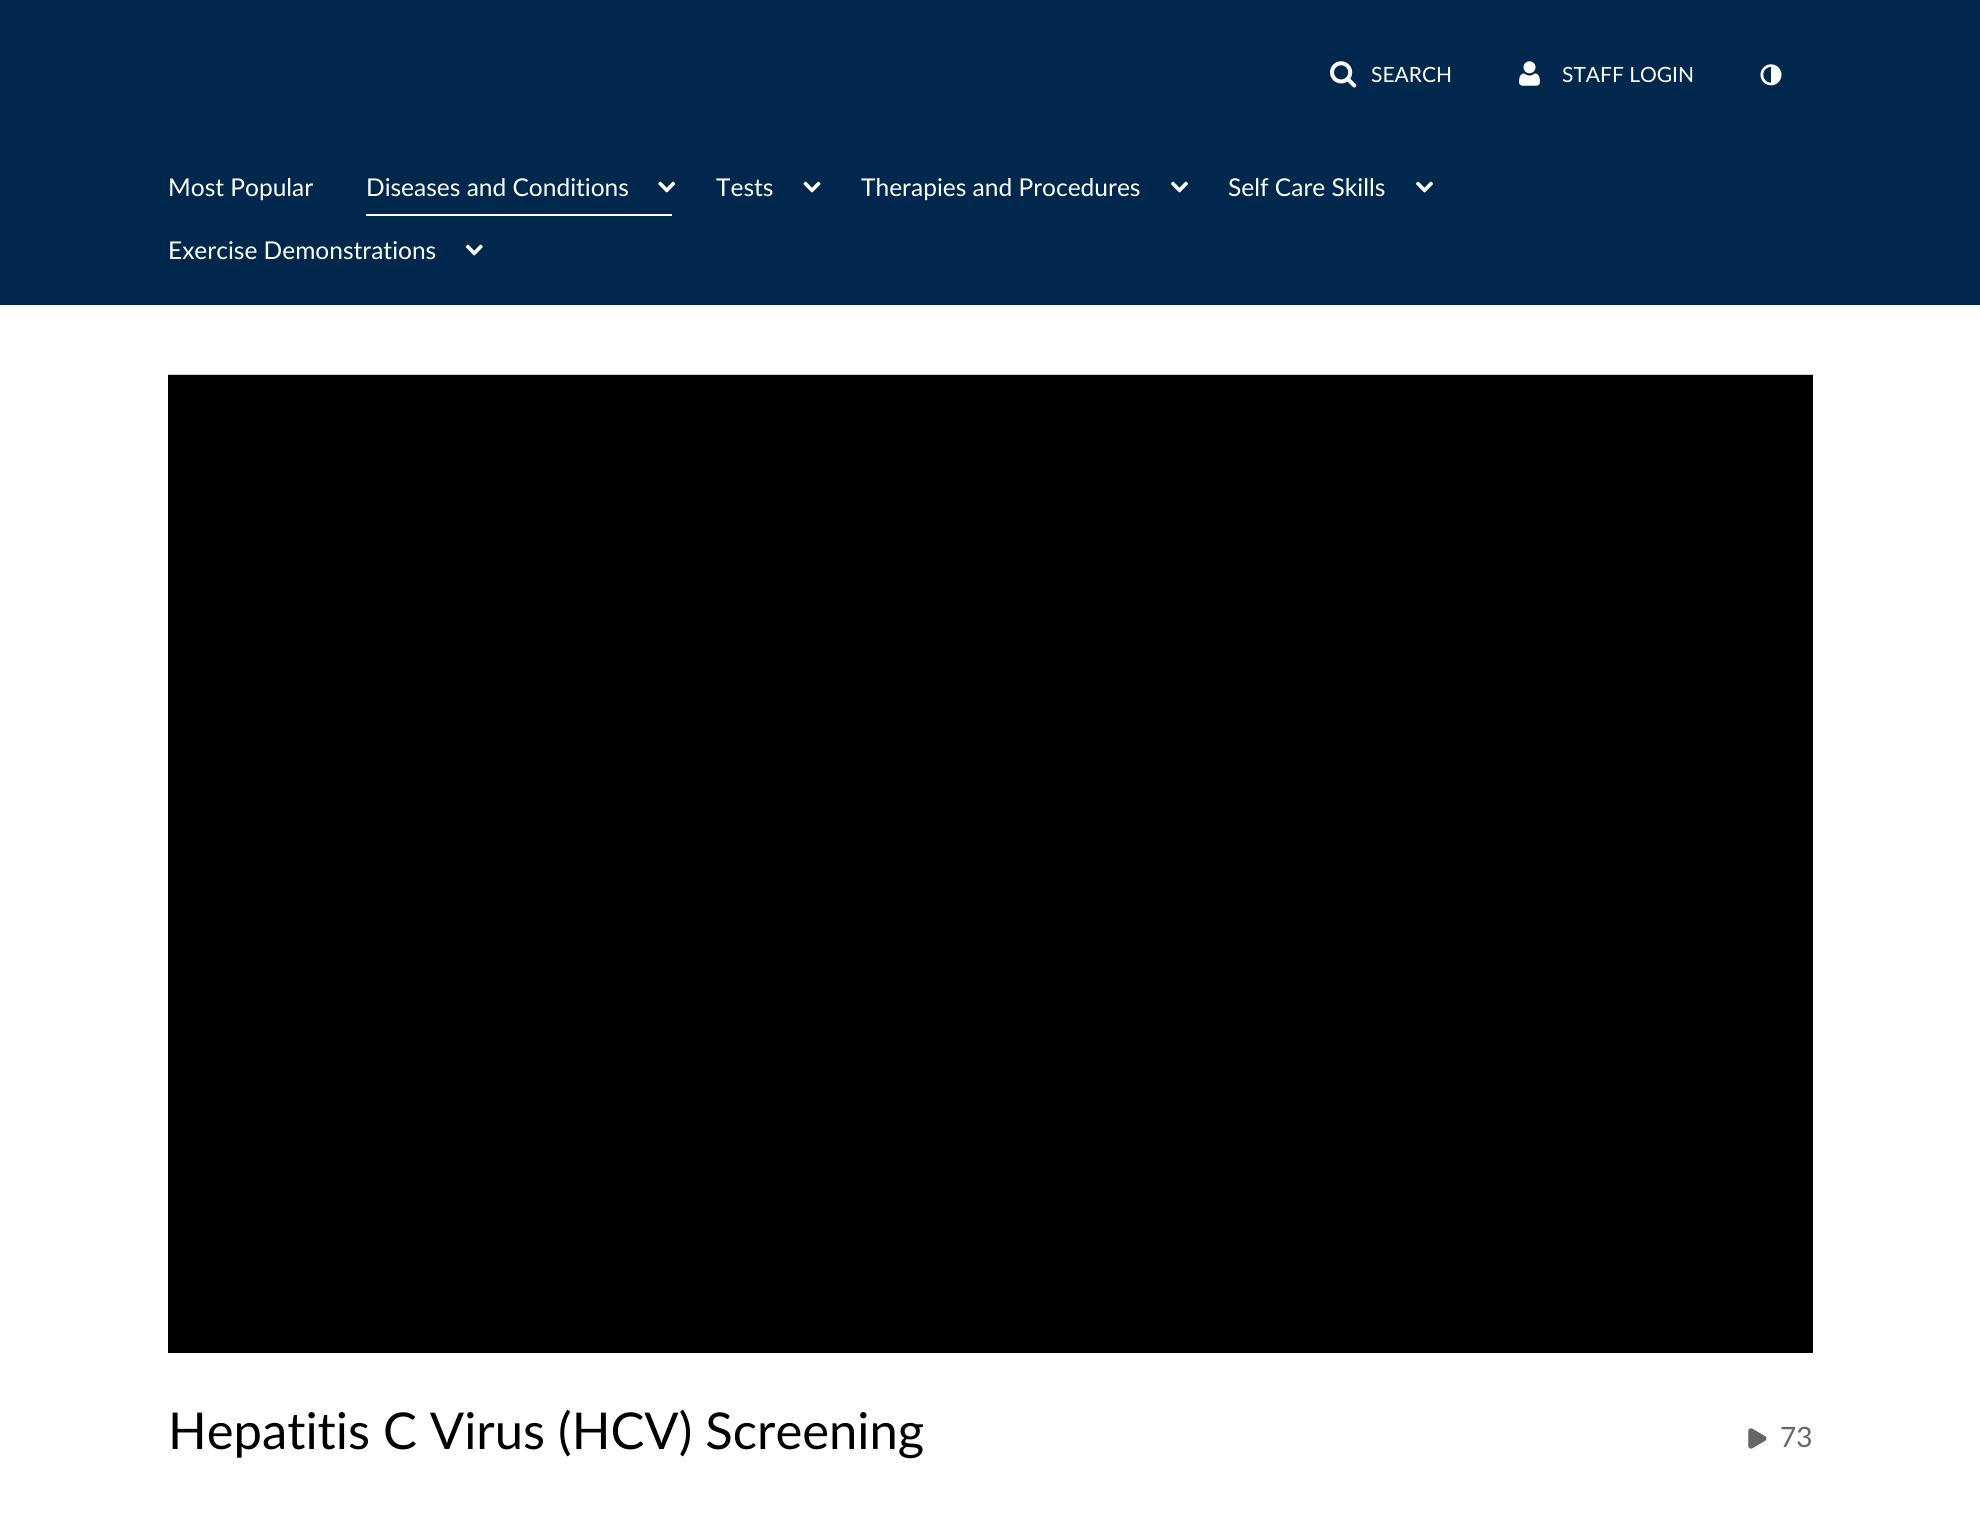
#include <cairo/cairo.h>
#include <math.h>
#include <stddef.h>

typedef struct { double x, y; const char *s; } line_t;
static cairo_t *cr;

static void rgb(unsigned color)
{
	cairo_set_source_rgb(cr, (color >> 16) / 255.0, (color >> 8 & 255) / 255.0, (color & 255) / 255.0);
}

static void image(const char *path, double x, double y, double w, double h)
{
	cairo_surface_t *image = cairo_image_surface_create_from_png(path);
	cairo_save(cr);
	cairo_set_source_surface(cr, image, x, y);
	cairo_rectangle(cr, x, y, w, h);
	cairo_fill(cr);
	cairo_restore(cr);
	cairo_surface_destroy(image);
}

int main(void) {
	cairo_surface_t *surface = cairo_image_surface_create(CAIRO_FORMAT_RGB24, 1980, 1526);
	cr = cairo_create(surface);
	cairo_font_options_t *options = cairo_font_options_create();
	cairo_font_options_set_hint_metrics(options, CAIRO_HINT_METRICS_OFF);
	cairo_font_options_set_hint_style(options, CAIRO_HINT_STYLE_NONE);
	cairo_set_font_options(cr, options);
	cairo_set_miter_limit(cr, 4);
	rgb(0xffffff);
	cairo_paint(cr);
	rgb(0x00274c);
	cairo_rectangle(cr, 0, 0, 1980, 305);
	cairo_fill(cr);
	image("img/1.png", 1330, 61, 27, 27);
	image("img/2.png", 1519, 61, 21, 25);
	image("img/3.png", 1760, 64, 22, 22);
	rgb(0xffffff);
	cairo_rectangle(cr, 366, 214, 306, 2);
	cairo_fill(cr);
	image("img/4.png", 658, 181, 18, 12);
	image("img/5.png", 803, 181, 18, 12);
	image("img/6.png", 1171, 181, 17, 12);
	image("img/6.png", 1416, 181, 17, 12);
	image("img/7.png", 465, 244, 18, 12);
	rgb(0x000000);
	cairo_rectangle(cr, 168, 375, 1645, 978);
	cairo_fill(cr);
	rgb(0xd1d1d1);
	cairo_rectangle(cr, 168, 374, 1645, 1);
	cairo_fill(cr);
	image("img/8.png", 1748, 1428, 19, 21);
	cairo_select_font_face(cr, "Lato", CAIRO_FONT_SLANT_NORMAL, CAIRO_FONT_WEIGHT_NORMAL);
	cairo_set_font_size(cr, 21);
	rgb(0xffffff);
	cairo_move_to(cr, 1371, 82);
	cairo_show_text(cr, "SEARCH");
	cairo_move_to(cr, 1562, 82);
	cairo_show_text(cr, "STAFF LOGIN");
	cairo_set_font_size(cr, 24.5);
	{
		static const line_t items[] = {
			{168, 196, "Most Popular"},
			{366, 196, "Diseases and Conditions"},
			{716, 196, "Tests"},
			{861, 196, "Therapies and Procedures"},
			{1228, 196, "Self Care Skills"},
			{168, 259, "Exercise Demonstrations"},
		};
		for (size_t i = 0; i < sizeof items / sizeof *items; i++) {
			cairo_move_to(cr, items[i].x, items[i].y);
			cairo_show_text(cr, items[i].s);
		}
	}
	cairo_set_font_size(cr, 50.75);
	rgb(0x000000);
	cairo_move_to(cr, 168, 1449);
	cairo_show_text(cr, "Hepatitis C Virus (HCV) Screening");
	cairo_set_font_size(cr, 28);
	rgb(0x666666);
	cairo_move_to(cr, 1780, 1447);
	cairo_show_text(cr, "73");
	cairo_surface_write_to_png(surface, "page.png");
	cairo_font_options_destroy(options);
	cairo_destroy(cr);
	cairo_surface_destroy(surface);
	return 0;
}
